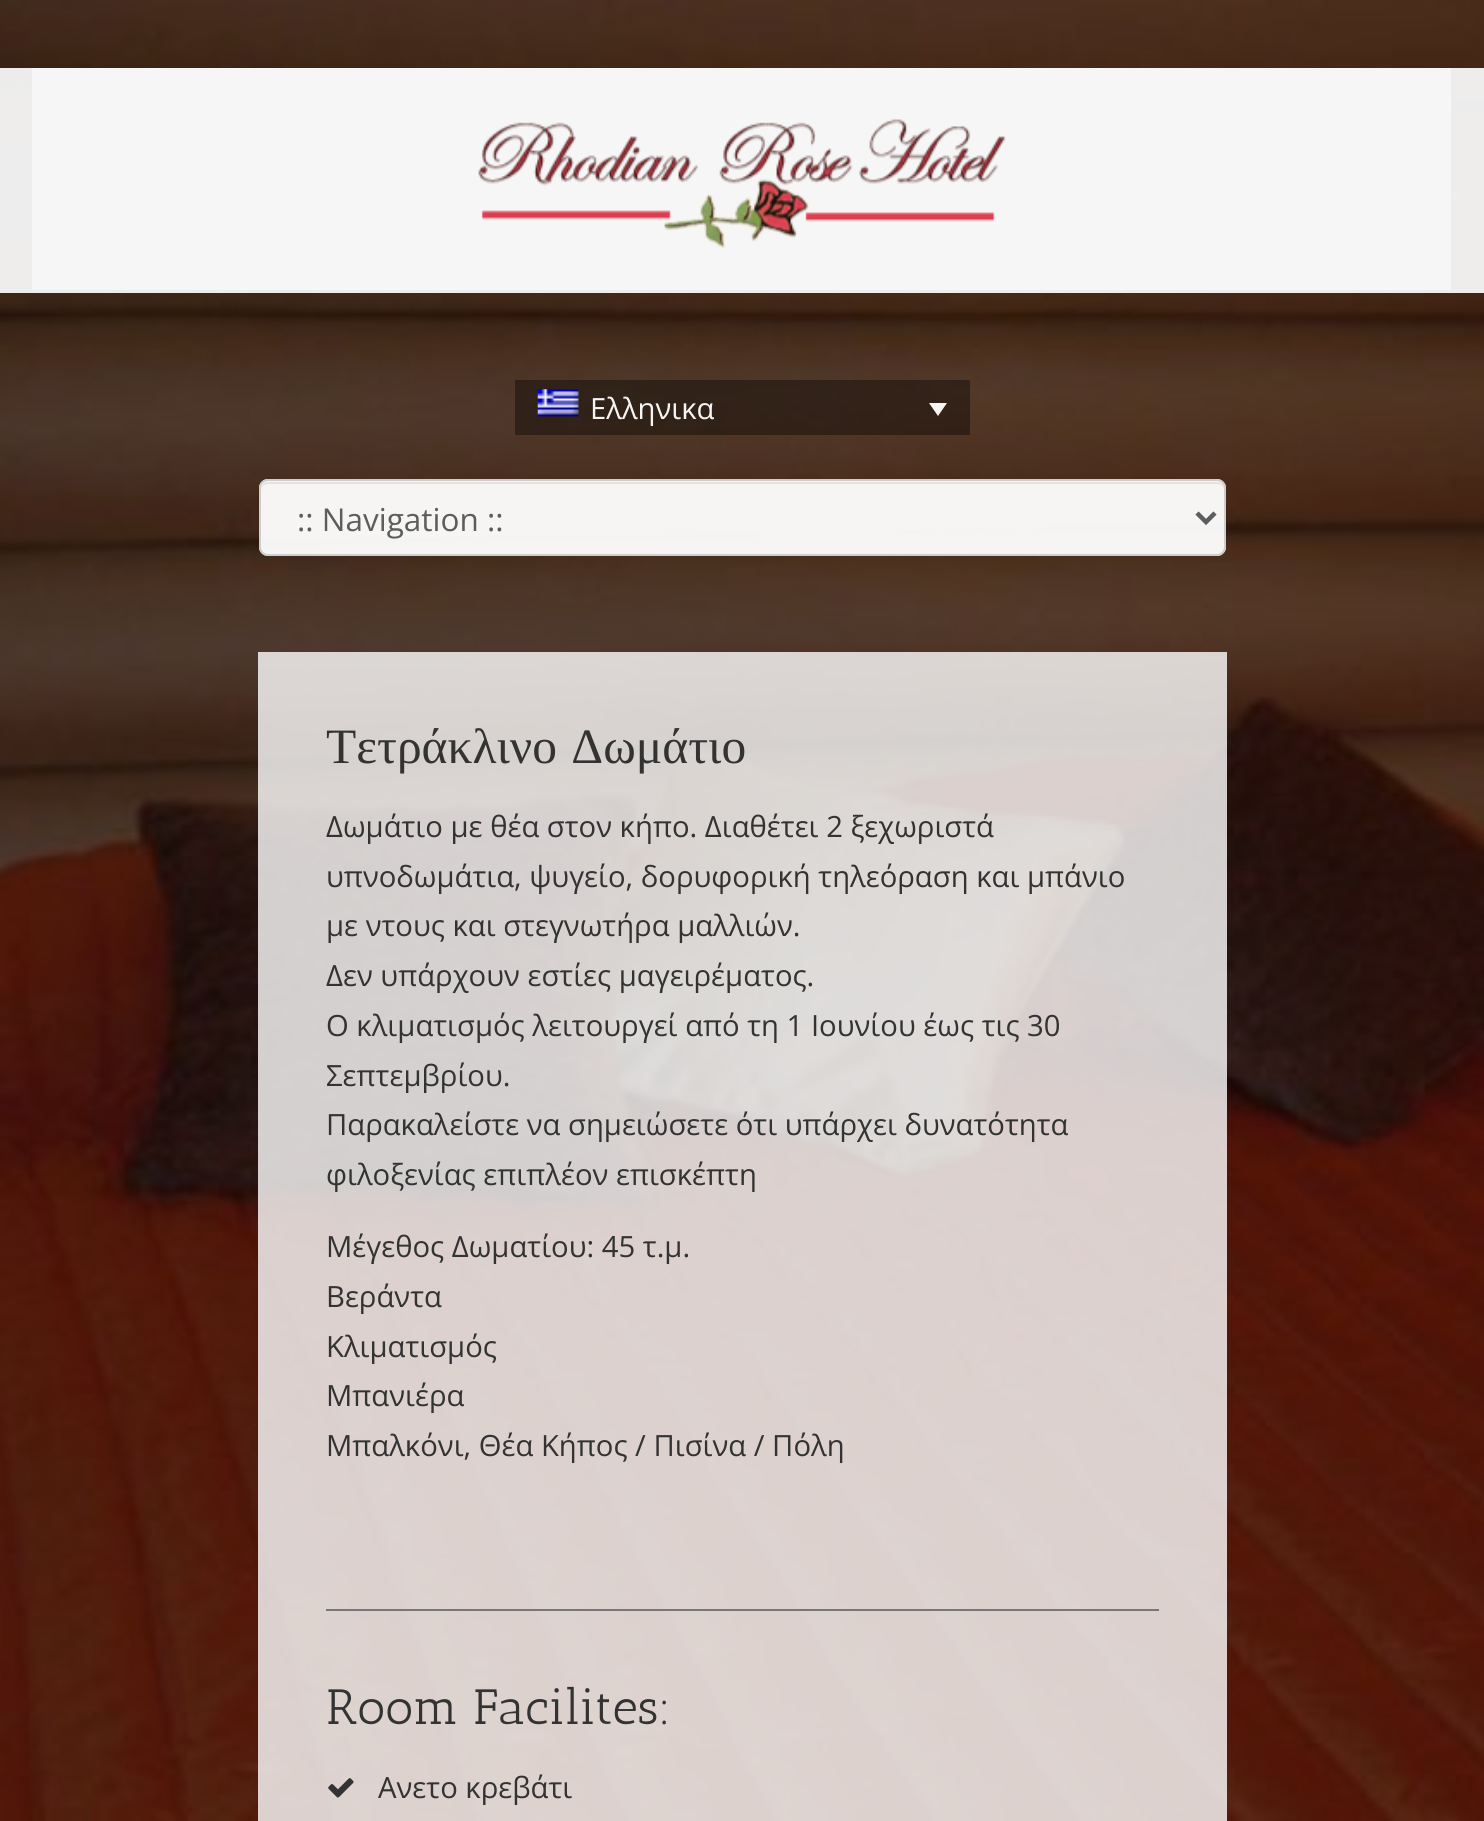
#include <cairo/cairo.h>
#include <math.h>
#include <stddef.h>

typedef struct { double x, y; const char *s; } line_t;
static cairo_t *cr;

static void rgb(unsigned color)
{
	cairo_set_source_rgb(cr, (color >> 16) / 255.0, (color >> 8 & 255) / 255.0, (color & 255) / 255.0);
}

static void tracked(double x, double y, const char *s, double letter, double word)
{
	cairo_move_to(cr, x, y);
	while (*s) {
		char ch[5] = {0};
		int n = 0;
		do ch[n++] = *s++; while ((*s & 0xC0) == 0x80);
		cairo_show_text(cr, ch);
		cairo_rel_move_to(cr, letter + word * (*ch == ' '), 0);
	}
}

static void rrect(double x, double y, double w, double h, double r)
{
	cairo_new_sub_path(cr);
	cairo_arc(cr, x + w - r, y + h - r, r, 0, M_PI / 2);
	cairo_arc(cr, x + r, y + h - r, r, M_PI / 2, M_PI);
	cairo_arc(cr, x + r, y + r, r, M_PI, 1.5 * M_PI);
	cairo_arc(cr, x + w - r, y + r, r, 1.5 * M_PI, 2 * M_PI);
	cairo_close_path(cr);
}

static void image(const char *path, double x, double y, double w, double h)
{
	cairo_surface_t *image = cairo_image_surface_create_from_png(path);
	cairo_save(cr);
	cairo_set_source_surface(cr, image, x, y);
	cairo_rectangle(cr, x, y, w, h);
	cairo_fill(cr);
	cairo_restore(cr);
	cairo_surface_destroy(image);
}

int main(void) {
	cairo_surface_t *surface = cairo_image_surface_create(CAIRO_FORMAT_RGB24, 1484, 1821);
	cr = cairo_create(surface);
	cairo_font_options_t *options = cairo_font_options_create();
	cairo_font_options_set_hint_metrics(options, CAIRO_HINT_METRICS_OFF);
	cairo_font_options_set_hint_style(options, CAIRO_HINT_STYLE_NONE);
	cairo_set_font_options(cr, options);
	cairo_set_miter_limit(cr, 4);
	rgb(0xffffff);
	cairo_paint(cr);
	image("img/1.png", 0, 0, 1484, 1821);
	cairo_set_source_rgba(cr, 0.969, 0.969, 0.969, 0.95);
	cairo_rectangle(cr, 0, 68, 1484, 225);
	cairo_fill(cr);
	rgb(0xf7f6f6);
	cairo_rectangle(cr, 32, 68, 1419, 222);
	cairo_fill(cr);
	image("img/2.png", 478, 119, 528, 129);
	cairo_set_source_rgba(cr, 0, 0, 0, 0.38);
	cairo_rectangle(cr, 515, 380, 455, 55);
	cairo_fill(cr);
	image("img/3.png", 537, 389, 42, 28);
	rgb(0xf6f5f4);
	cairo_new_path(cr);
	cairo_move_to(cr, 929, 403);
	cairo_line_to(cr, 947, 403);
	cairo_line_to(cr, 938, 416);
	cairo_close_path(cr);
	cairo_fill(cr);
	cairo_set_source_rgba(cr, 1, 1, 1, 0.95);
	rrect(259, 479, 967, 77, 9);
	cairo_fill(cr);
	rgb(0xe4e3e2);
	cairo_new_path(cr);
	cairo_move_to(cr, 268, 484);
	cairo_line_to(cr, 1217, 484);
	cairo_curve_to(cr, 1221, 484, 1224, 487, 1224, 490);
	cairo_line_to(cr, 1224, 489);
	cairo_curve_to(cr, 1224, 485, 1221, 482, 1217, 482);
	cairo_line_to(cr, 268, 482);
	cairo_curve_to(cr, 264, 482, 261, 485, 261, 489);
	cairo_line_to(cr, 261, 490);
	cairo_curve_to(cr, 261, 487, 264, 484, 268, 484);
	cairo_close_path(cr);
	cairo_fill(cr);
	rrect(260, 480, 965, 75, 8);
	cairo_set_source_rgba(cr, 0.8, 0.8, 0.8, 0.95);
	cairo_stroke(cr);
	cairo_new_path(cr);
	cairo_move_to(cr, 1197, 513);
	cairo_line_to(cr, 1206, 522);
	cairo_line_to(cr, 1215, 513);
	rgb(0x5d5d5d);
	cairo_set_line_width(cr, 4.5);
	cairo_stroke(cr);
	cairo_set_source_rgba(cr, 1, 1, 1, 0.8);
	cairo_rectangle(cr, 258, 652, 969, 1169);
	cairo_fill(cr);
	rgb(0x777777);
	cairo_rectangle(cr, 326, 1609, 833, 2);
	cairo_fill(cr);
	image("img/4.png", 328, 1778, 26, 20);
	cairo_select_font_face(cr, "Open Sans", CAIRO_FONT_SLANT_NORMAL, CAIRO_FONT_WEIGHT_NORMAL);
	cairo_set_font_size(cr, 29.25);
	rgb(0xf6f5f4);
	cairo_move_to(cr, 590, 419);
	cairo_show_text(cr, "Ελληνικα");
	cairo_set_font_size(cr, 31.5);
	rgb(0x5d5d5d);
	cairo_move_to(cr, 297, 531);
	cairo_show_text(cr, ":: Navigation ::");
	cairo_select_font_face(cr, "Liberation Serif", CAIRO_FONT_SLANT_NORMAL, CAIRO_FONT_WEIGHT_NORMAL);
	cairo_set_font_size(cr, 49.5);
	rgb(0x333333);
	tracked(326, 763, "Τετράκλινο Δωμάτιο", 0, 2);
	cairo_select_font_face(cr, "Open Sans", CAIRO_FONT_SLANT_NORMAL, CAIRO_FONT_WEIGHT_NORMAL);
	cairo_set_font_size(cr, 29.25);
	{
		static const line_t items[] = {
			{326, 837, "Δωμάτιο με θέα στον κήπο. Διαθέτει 2 ξεχωριστά"},
			{326, 887, "υπνοδωμάτια, ψυγείο, δορυφορική τηλεόραση και μπάνιο"},
			{326, 936, "με ντους και στεγνωτήρα μαλλιών."},
			{326, 986, "Δεν υπάρχουν εστίες μαγειρέματος."},
			{326, 1036, "Ο κλιματισμός λειτουργεί από τη 1 Ιουνίου έως τις 30"},
			{326, 1086, "Σεπτεμβρίου."},
			{326, 1135, "Παρακαλείστε να σημειώσετε ότι υπάρχει δυνατότητα"},
			{326, 1185, "φιλοξενίας επιπλέον επισκέπτη"},
			{326, 1257, "Μέγεθος Δωματίου: 45 τ.μ."},
			{326, 1307, "Βεράντα"},
			{326, 1357, "Κλιματισμός"},
			{326, 1406, "Μπανιέρα"},
			{326, 1456, "Μπαλκόνι, Θέα Κήπος / Πισίνα / Πόλη"},
		};
		for (size_t i = 0; i < sizeof items / sizeof *items; i++) {
			cairo_move_to(cr, items[i].x, items[i].y);
			cairo_show_text(cr, items[i].s);
		}
	}
	cairo_select_font_face(cr, "Antic Slab", CAIRO_FONT_SLANT_NORMAL, CAIRO_FONT_WEIGHT_NORMAL);
	cairo_set_font_size(cr, 49.5);
	cairo_move_to(cr, 326, 1724);
	cairo_show_text(cr, "Room Facilites:");
	cairo_select_font_face(cr, "Open Sans", CAIRO_FONT_SLANT_NORMAL, CAIRO_FONT_WEIGHT_NORMAL);
	cairo_set_font_size(cr, 29.25);
	cairo_move_to(cr, 378, 1798);
	cairo_show_text(cr, "Aνετο κρεβάτι");
	cairo_surface_write_to_png(surface, "page.png");
	cairo_font_options_destroy(options);
	cairo_destroy(cr);
	cairo_surface_destroy(surface);
	return 0;
}
